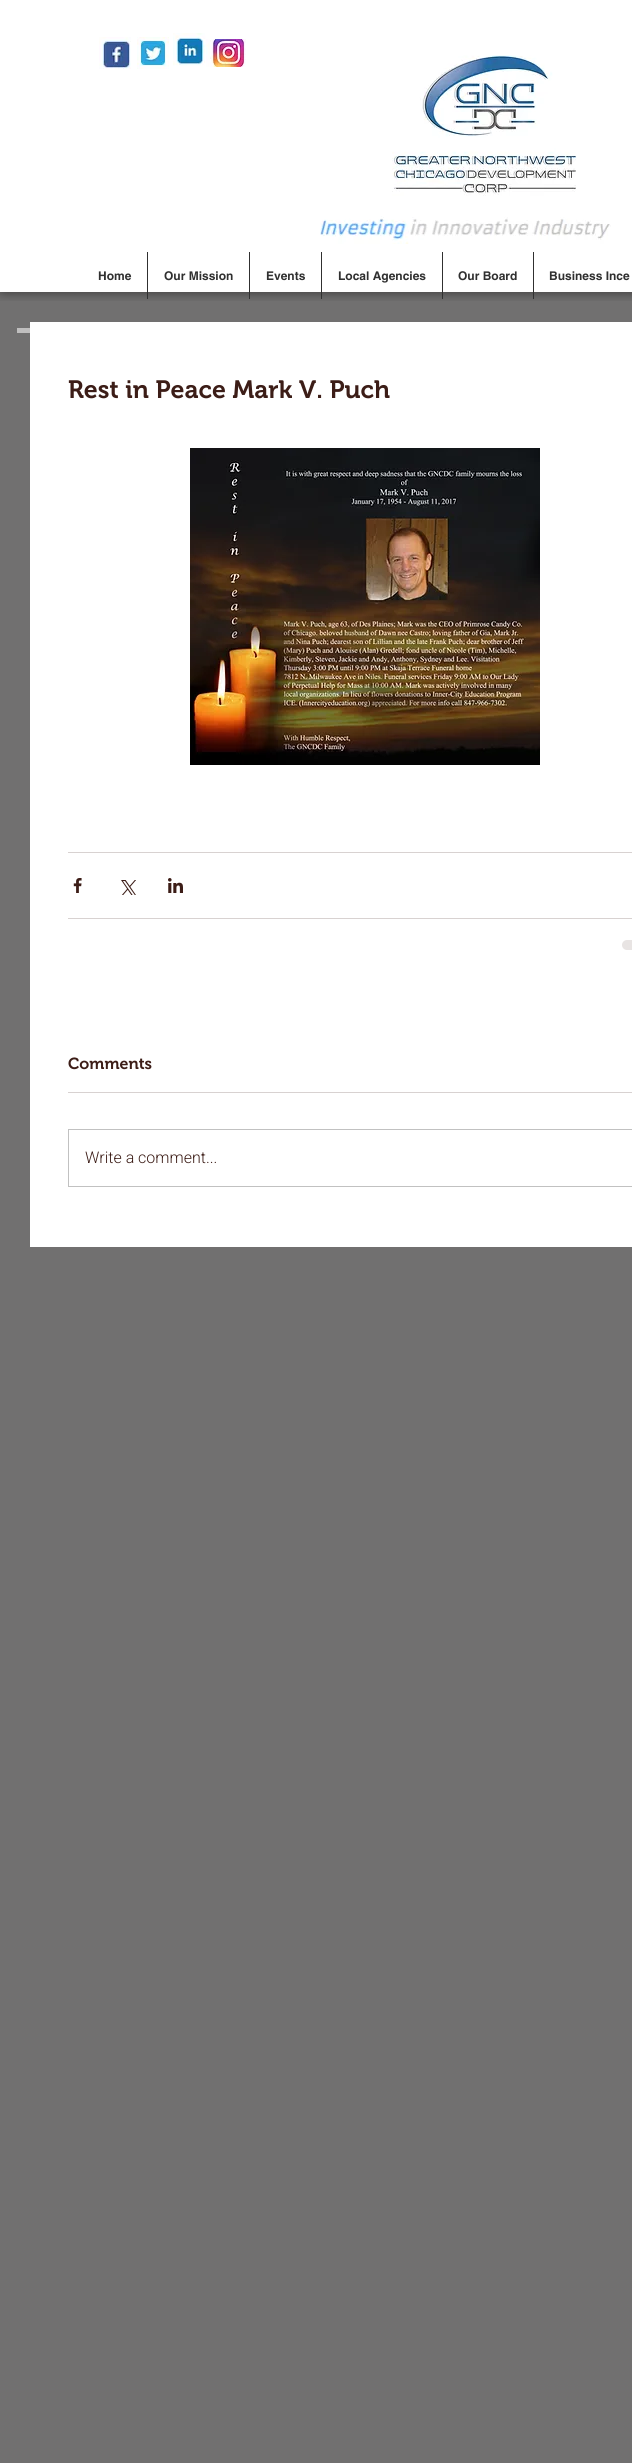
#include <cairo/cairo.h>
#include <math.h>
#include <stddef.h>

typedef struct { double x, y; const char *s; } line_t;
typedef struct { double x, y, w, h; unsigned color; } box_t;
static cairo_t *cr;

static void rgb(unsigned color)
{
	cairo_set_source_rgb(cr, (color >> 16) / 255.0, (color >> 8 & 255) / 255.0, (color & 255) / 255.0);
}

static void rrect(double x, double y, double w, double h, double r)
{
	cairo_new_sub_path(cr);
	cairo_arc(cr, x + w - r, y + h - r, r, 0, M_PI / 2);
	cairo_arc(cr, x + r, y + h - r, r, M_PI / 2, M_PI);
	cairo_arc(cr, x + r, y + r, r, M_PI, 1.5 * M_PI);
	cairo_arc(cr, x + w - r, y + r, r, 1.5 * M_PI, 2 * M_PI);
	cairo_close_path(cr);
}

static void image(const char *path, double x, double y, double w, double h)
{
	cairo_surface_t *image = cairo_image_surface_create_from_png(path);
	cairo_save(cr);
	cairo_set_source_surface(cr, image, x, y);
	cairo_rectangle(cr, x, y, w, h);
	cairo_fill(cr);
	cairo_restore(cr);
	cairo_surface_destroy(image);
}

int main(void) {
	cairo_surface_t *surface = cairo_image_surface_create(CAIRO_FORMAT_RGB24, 632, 2463);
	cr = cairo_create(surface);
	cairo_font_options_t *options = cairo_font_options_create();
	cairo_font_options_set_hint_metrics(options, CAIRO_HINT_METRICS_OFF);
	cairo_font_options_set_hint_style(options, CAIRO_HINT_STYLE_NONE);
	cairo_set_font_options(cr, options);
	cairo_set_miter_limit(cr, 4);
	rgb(0x717070);
	cairo_paint(cr);
	rgb(0xffffff);
	cairo_rectangle(cr, 0, 0, 632, 292);
	cairo_fill(cr);
	image("img/1.png", 0, 292, 35, 9);
	image("img/2.png", 35, 292, 597, 9);
	image("img/3.png", 99, 37, 32, 32);
	image("img/4.png", 137, 37, 32, 32);
	image("img/5.png", 173, 33, 33, 33);
	image("img/6.png", 206, 39, 40, 28);
	image("img/7.png", 392, 55, 185, 141);
	image("img/8.png", 320, 216, 291, 28);
	{
		static const box_t items[] = {
			{147, 252, 1, 47, 0x303030},
			{249, 252, 1, 47, 0x303030},
			{321, 252, 1, 47, 0x303030},
			{442, 252, 1, 47, 0x303030},
			{533, 252, 1, 47, 0x303030},
			{17, 328, 13, 5, 0xbfbebe},
			{30, 322, 602, 925, 0xffffff},
		};
		for (size_t i = 0; i < sizeof items / sizeof *items; i++) {
			rgb(items[i].color);
			cairo_rectangle(cr, items[i].x, items[i].y, items[i].w, items[i].h);
			cairo_fill(cr);
		}
	}
	image("img/9.png", 190, 448, 350, 317);
	rgb(0xd8d2d1);
	cairo_rectangle(cr, 68, 852, 564, 1);
	cairo_fill(cr);
	image("img/10.png", 73, 878, 9, 15);
	image("img/11.png", 121, 880, 15, 15);
	image("img/12.png", 168, 878, 15, 15);
	cairo_rectangle(cr, 68, 918, 564, 1);
	cairo_fill(cr);
	rgb(0xe8e4e3);
	rrect(622, 940, 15, 10, 5);
	cairo_fill(cr);
	rgb(0xd8d2d1);
	cairo_rectangle(cr, 68, 1092, 564, 1);
	cairo_fill(cr);
	cairo_rectangle(cr, 68.5, 1129.5, 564, 57);
	rgb(0xc1c1c1);
	cairo_set_line_width(cr, 1);
	cairo_stroke(cr);
	cairo_select_font_face(cr, "helvetica", CAIRO_FONT_SLANT_NORMAL, CAIRO_FONT_WEIGHT_BOLD);
	cairo_set_font_size(cr, 12);
	rgb(0x303030);
	{
		static const line_t items[] = {
			{98, 280, "Home"},
			{164, 280, "Our Mission"},
			{266, 280, "Events"},
			{338, 280, "Local Agencies"},
			{458, 280, "Our Board"},
			{549, 280, "Business Ince"},
		};
		for (size_t i = 0; i < sizeof items / sizeof *items; i++) {
			cairo_move_to(cr, items[i].x, items[i].y);
			cairo_show_text(cr, items[i].s);
		}
	}
	cairo_select_font_face(cr, "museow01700 SemiBold", CAIRO_FONT_SLANT_NORMAL, CAIRO_FONT_WEIGHT_NORMAL);
	cairo_set_font_size(cr, 25);
	rgb(0x3c1d17);
	cairo_move_to(cr, 68, 398);
	cairo_show_text(cr, "Rest in Peace Mark V. Puch");
	cairo_set_font_size(cr, 16);
	cairo_move_to(cr, 68, 1069);
	cairo_show_text(cr, "Comments");
	cairo_select_font_face(cr, "Heebo Light", CAIRO_FONT_SLANT_NORMAL, CAIRO_FONT_WEIGHT_NORMAL);
	cairo_move_to(cr, 85, 1163);
	cairo_show_text(cr, "Write a comment...");
	cairo_surface_write_to_png(surface, "page.png");
	cairo_font_options_destroy(options);
	cairo_destroy(cr);
	cairo_surface_destroy(surface);
	return 0;
}
